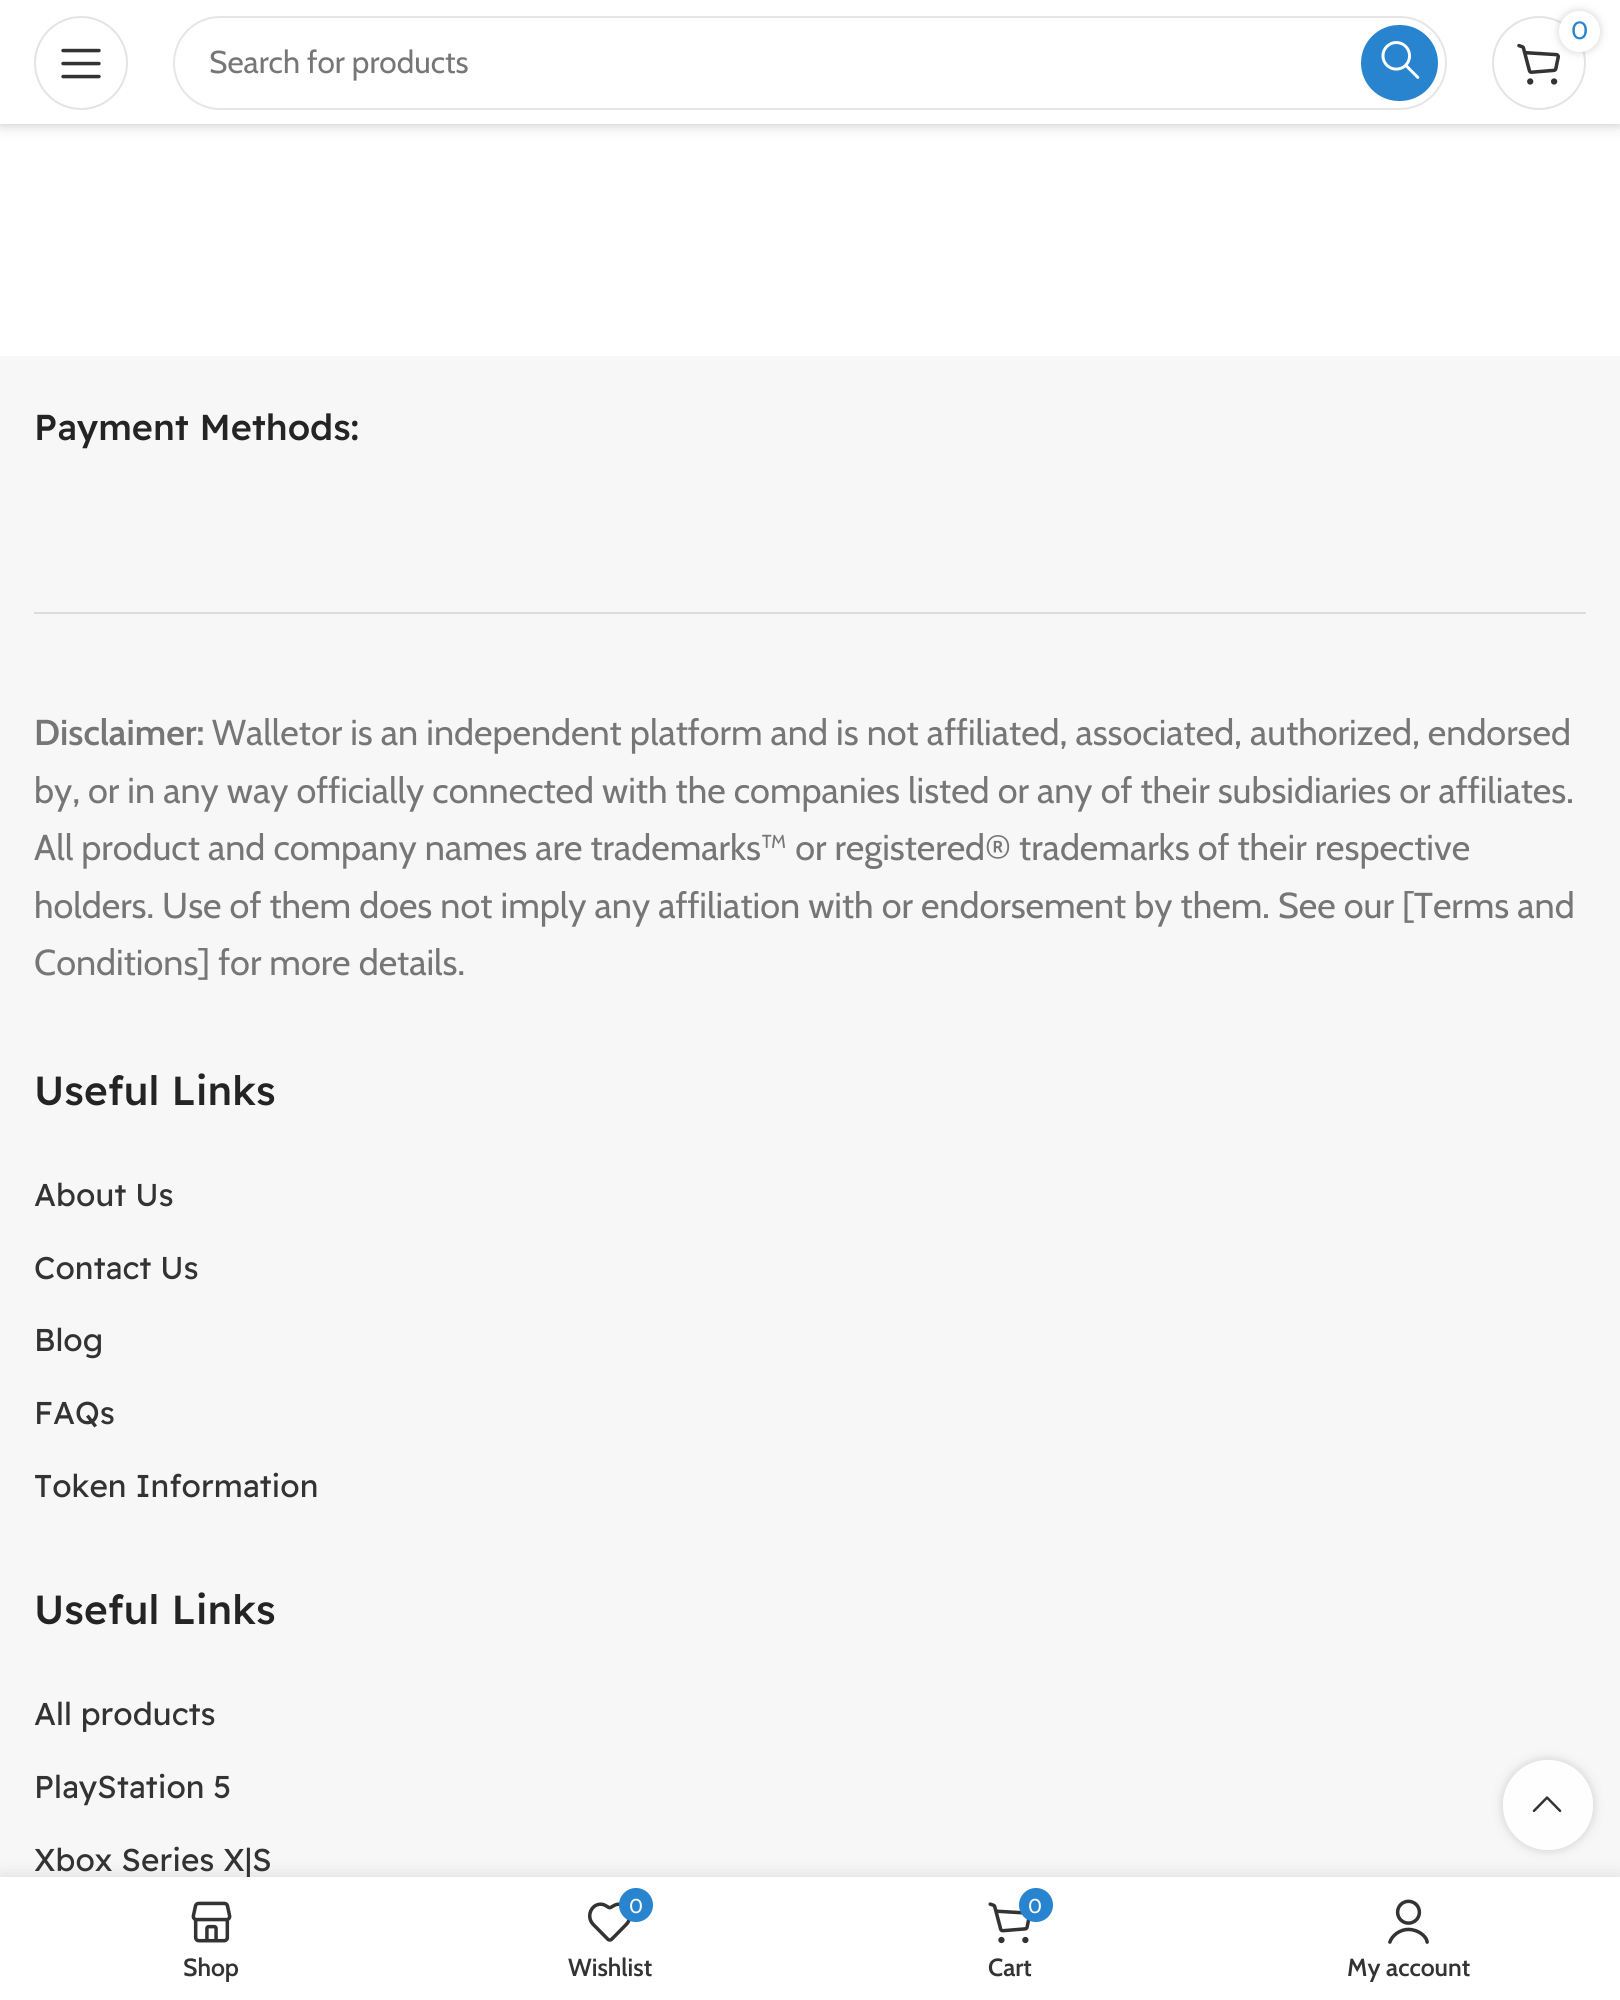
#include <cairo/cairo.h>
#include <math.h>
#include <stddef.h>

typedef struct { double x, y; const char *s; } line_t;
static cairo_t *cr;

static void rgb(unsigned color)
{
	cairo_set_source_rgb(cr, (color >> 16) / 255.0, (color >> 8 & 255) / 255.0, (color & 255) / 255.0);
}

static void rrect(double x, double y, double w, double h, double r)
{
	cairo_new_sub_path(cr);
	cairo_arc(cr, x + w - r, y + h - r, r, 0, M_PI / 2);
	cairo_arc(cr, x + r, y + h - r, r, M_PI / 2, M_PI);
	cairo_arc(cr, x + r, y + r, r, M_PI, 1.5 * M_PI);
	cairo_arc(cr, x + w - r, y + r, r, 1.5 * M_PI, 2 * M_PI);
	cairo_close_path(cr);
}

static void soft_shadow(double x, double y, double w, double h, double r, double blur, double alpha)
{
	cairo_push_group_with_content(cr, CAIRO_CONTENT_ALPHA);
	cairo_set_operator(cr, CAIRO_OPERATOR_SOURCE);
	for (int i = 15; i >= -15 && fmin(w, h) + blur * i / 3 > 0; i -= 2) {
		double e = blur * i / 6;
		cairo_set_source_rgba(cr, 0, 0, 0, alpha * erfc((i - 1) / 8.5) / 2);
		rrect(x - e, y - e, w + 2 * e, h + 2 * e, fmax(0, fmin(r + e + blur * .6, fmin(w, h) / 2 + e)));
		cairo_fill(cr);
	}
	cairo_pattern_t *soft = cairo_pop_group(cr);
	cairo_mask(cr, soft);
	cairo_pattern_destroy(soft);
}

static void image(const char *path, double x, double y, double w, double h)
{
	cairo_surface_t *image = cairo_image_surface_create_from_png(path);
	cairo_save(cr);
	cairo_set_source_surface(cr, image, x, y);
	cairo_rectangle(cr, x, y, w, h);
	cairo_fill(cr);
	cairo_restore(cr);
	cairo_surface_destroy(image);
}

int main(void) {
	cairo_surface_t *surface = cairo_image_surface_create(CAIRO_FORMAT_RGB24, 1620, 2000);
	cr = cairo_create(surface);
	cairo_font_options_t *options = cairo_font_options_create();
	cairo_font_options_set_hint_metrics(options, CAIRO_HINT_METRICS_OFF);
	cairo_font_options_set_hint_style(options, CAIRO_HINT_STYLE_NONE);
	cairo_set_font_options(cr, options);
	cairo_set_miter_limit(cr, 4);
	rgb(0xffffff);
	cairo_paint(cr);
	rgb(0x000000);
	soft_shadow(0, 2, 1620, 124, 0, 3.5, 0.1);
	soft_shadow(0, 2, 1620, 124, 0, 9, 0.1);
	rgb(0xffffff);
	cairo_rectangle(cr, 0, 0, 1620, 124);
	cairo_fill(cr);
	cairo_arc(cr, 81, 63, 46, 0, 2 * M_PI);
	rgb(0xe4e4e4);
	cairo_stroke(cr);
	image("img/1.png", 61, 48, 40, 31);
	cairo_arc(cr, 1539, 63, 46, 0, 2 * M_PI);
	cairo_stroke(cr);
	image("img/2.png", 1517, 43, 43, 42);
	rgb(0x000000);
	soft_shadow(1559, 11, 41, 41, 20.5, 4.5, 0.17);
	rgb(0xffffff);
	cairo_arc(cr, 1579.5, 31.5, 20.5, 0, 2 * M_PI);
	cairo_fill(cr);
	rrect(174, 17, 1272, 92, 46);
	rgb(0xe6e6e6);
	cairo_stroke(cr);
	rgb(0x2884ce);
	rrect(1361, 25, 77, 76, 38);
	cairo_fill(cr);
	image("img/3.png", 1381, 41, 39, 38);
	rgb(0xf7f7f7);
	cairo_rectangle(cr, 0, 356, 1620, 1521);
	cairo_fill(cr);
	rgb(0xdcdcdc);
	cairo_rectangle(cr, 34, 612, 1552, 2);
	cairo_fill(cr);
	cairo_save(cr);
	cairo_set_fill_rule(cr, CAIRO_FILL_RULE_EVEN_ODD);
	cairo_new_path(cr);
	cairo_move_to(cr, 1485, 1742);
	cairo_line_to(cr, 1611, 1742);
	cairo_line_to(cr, 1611, 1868);
	cairo_line_to(cr, 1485, 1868);
	cairo_close_path(cr);
	cairo_move_to(cr, 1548, 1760);
	cairo_curve_to(cr, 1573, 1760, 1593, 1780, 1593, 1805);
	cairo_curve_to(cr, 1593, 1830, 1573, 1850, 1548, 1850);
	cairo_curve_to(cr, 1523, 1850, 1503, 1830, 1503, 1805);
	cairo_curve_to(cr, 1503, 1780, 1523, 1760, 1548, 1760);
	cairo_close_path(cr);
	cairo_clip(cr);
	rgb(0x000000);
	soft_shadow(1503, 1760, 90, 90, 45, 5.5, 0.17);
	cairo_restore(cr);
	cairo_set_source_rgba(cr, 1, 1, 1, 0.9);
	cairo_arc(cr, 1548, 1805, 45, 0, 2 * M_PI);
	cairo_fill(cr);
	image("img/4.png", 1532, 1796, 30, 17);
	rgb(0x000000);
	soft_shadow(0, 1877, 1620, 123, 0, 10, 0.12);
	cairo_select_font_face(cr, "Cabin", CAIRO_FONT_SLANT_NORMAL, CAIRO_FONT_WEIGHT_NORMAL);
	cairo_set_font_size(cr, 24.75);
	rgb(0x2884ce);
	cairo_move_to(cr, 1571, 39);
	cairo_show_text(cr, "0");
	cairo_set_font_size(cr, 31.5);
	rgb(0x767676);
	cairo_move_to(cr, 209, 73);
	cairo_show_text(cr, "Search for products");
	cairo_select_font_face(cr, "Readex Pro Medium", CAIRO_FONT_SLANT_NORMAL, CAIRO_FONT_WEIGHT_NORMAL);
	cairo_set_font_size(cr, 36);
	rgb(0x242424);
	cairo_move_to(cr, 34, 440);
	cairo_show_text(cr, "Payment Methods:");
	cairo_select_font_face(cr, "Cabin SemiBold", CAIRO_FONT_SLANT_NORMAL, CAIRO_FONT_WEIGHT_NORMAL);
	rgb(0x767676);
	cairo_move_to(cr, 34, 745);
	cairo_show_text(cr, "Disclaimer:");
	cairo_select_font_face(cr, "Cabin", CAIRO_FONT_SLANT_NORMAL, CAIRO_FONT_WEIGHT_NORMAL);
	{
		static const line_t items[] = {
			{212, 745, "Walletor is an independent platform and is not affiliated, associated, authorized, endorsed"},
			{34, 803, "by, or in any way officially connected with the companies listed or any of their subsidiaries or affiliates."},
			{34, 860, "All product and company names are trademarks™ or registered® trademarks of their respective"},
			{34, 918, "holders. Use of them does not imply any affiliation with or endorsement by them. See our [Terms and"},
			{34, 975, "Conditions] for more details."},
		};
		for (size_t i = 0; i < sizeof items / sizeof *items; i++) {
			cairo_move_to(cr, items[i].x, items[i].y);
			cairo_show_text(cr, items[i].s);
		}
	}
	cairo_select_font_face(cr, "Readex Pro Medium", CAIRO_FONT_SLANT_NORMAL, CAIRO_FONT_WEIGHT_NORMAL);
	cairo_set_font_size(cr, 40.5);
	rgb(0x242424);
	cairo_move_to(cr, 34, 1105);
	cairo_show_text(cr, "Useful Links");
	cairo_select_font_face(cr, "Readex Pro", CAIRO_FONT_SLANT_NORMAL, CAIRO_FONT_WEIGHT_NORMAL);
	cairo_set_font_size(cr, 31.5);
	rgb(0x333333);
	{
		static const line_t items[] = {
			{34, 1206, "About Us"},
			{34, 1279, "Contact Us"},
			{34, 1351, "Blog"},
			{34, 1424, "FAQs"},
			{34, 1497, "Token Information"},
		};
		for (size_t i = 0; i < sizeof items / sizeof *items; i++) {
			cairo_move_to(cr, items[i].x, items[i].y);
			cairo_show_text(cr, items[i].s);
		}
	}
	cairo_select_font_face(cr, "Readex Pro Medium", CAIRO_FONT_SLANT_NORMAL, CAIRO_FONT_WEIGHT_NORMAL);
	cairo_set_font_size(cr, 40.5);
	rgb(0x242424);
	cairo_move_to(cr, 34, 1624);
	cairo_show_text(cr, "Useful Links");
	cairo_select_font_face(cr, "Readex Pro", CAIRO_FONT_SLANT_NORMAL, CAIRO_FONT_WEIGHT_NORMAL);
	cairo_set_font_size(cr, 31.5);
	rgb(0x333333);
	{
		static const line_t items[] = {
			{34, 1725, "All products"},
			{34, 1798, "PlayStation 5"},
			{34, 1871, "Xbox Series X|S"},
		};
		for (size_t i = 0; i < sizeof items / sizeof *items; i++) {
			cairo_move_to(cr, items[i].x, items[i].y);
			cairo_show_text(cr, items[i].s);
		}
	}
	rgb(0xffffff);
	cairo_rectangle(cr, 0, 1877, 1620, 123);
	cairo_fill(cr);
	image("img/5.png", 191, 1901, 41, 42);
	cairo_select_font_face(cr, "Cabin SemiBold", CAIRO_FONT_SLANT_NORMAL, CAIRO_FONT_WEIGHT_NORMAL);
	cairo_set_font_size(cr, 24.75);
	rgb(0x333333);
	cairo_move_to(cr, 183, 1976);
	cairo_show_text(cr, "Shop");
	image("img/6.png", 587, 1902, 44, 40);
	rgb(0x2884ce);
	cairo_arc(cr, 636, 1905, 17, 0, 2 * M_PI);
	cairo_fill(cr);
	cairo_select_font_face(cr, "Cabin", CAIRO_FONT_SLANT_NORMAL, CAIRO_FONT_WEIGHT_NORMAL);
	cairo_set_font_size(cr, 20);
	rgb(0xffffff);
	cairo_move_to(cr, 629, 1913);
	cairo_show_text(cr, "0");
	cairo_select_font_face(cr, "Cabin SemiBold", CAIRO_FONT_SLANT_NORMAL, CAIRO_FONT_WEIGHT_NORMAL);
	cairo_set_font_size(cr, 24.75);
	rgb(0x333333);
	cairo_move_to(cr, 568, 1976);
	cairo_show_text(cr, "Wishlist");
	image("img/7.png", 988, 1902, 43, 42);
	rgb(0x2884ce);
	cairo_arc(cr, 1036, 1905, 17, 0, 2 * M_PI);
	cairo_fill(cr);
	cairo_select_font_face(cr, "Cabin", CAIRO_FONT_SLANT_NORMAL, CAIRO_FONT_WEIGHT_NORMAL);
	cairo_set_font_size(cr, 20);
	rgb(0xffffff);
	cairo_move_to(cr, 1028, 1913);
	cairo_show_text(cr, "0");
	cairo_select_font_face(cr, "Cabin SemiBold", CAIRO_FONT_SLANT_NORMAL, CAIRO_FONT_WEIGHT_NORMAL);
	cairo_set_font_size(cr, 24.75);
	rgb(0x333333);
	cairo_move_to(cr, 988, 1976);
	cairo_show_text(cr, "Cart");
	image("img/8.png", 1388, 1899, 41, 45);
	cairo_move_to(cr, 1347, 1976);
	cairo_show_text(cr, "My account");
	cairo_surface_write_to_png(surface, "page.png");
	cairo_font_options_destroy(options);
	cairo_destroy(cr);
	cairo_surface_destroy(surface);
	return 0;
}
